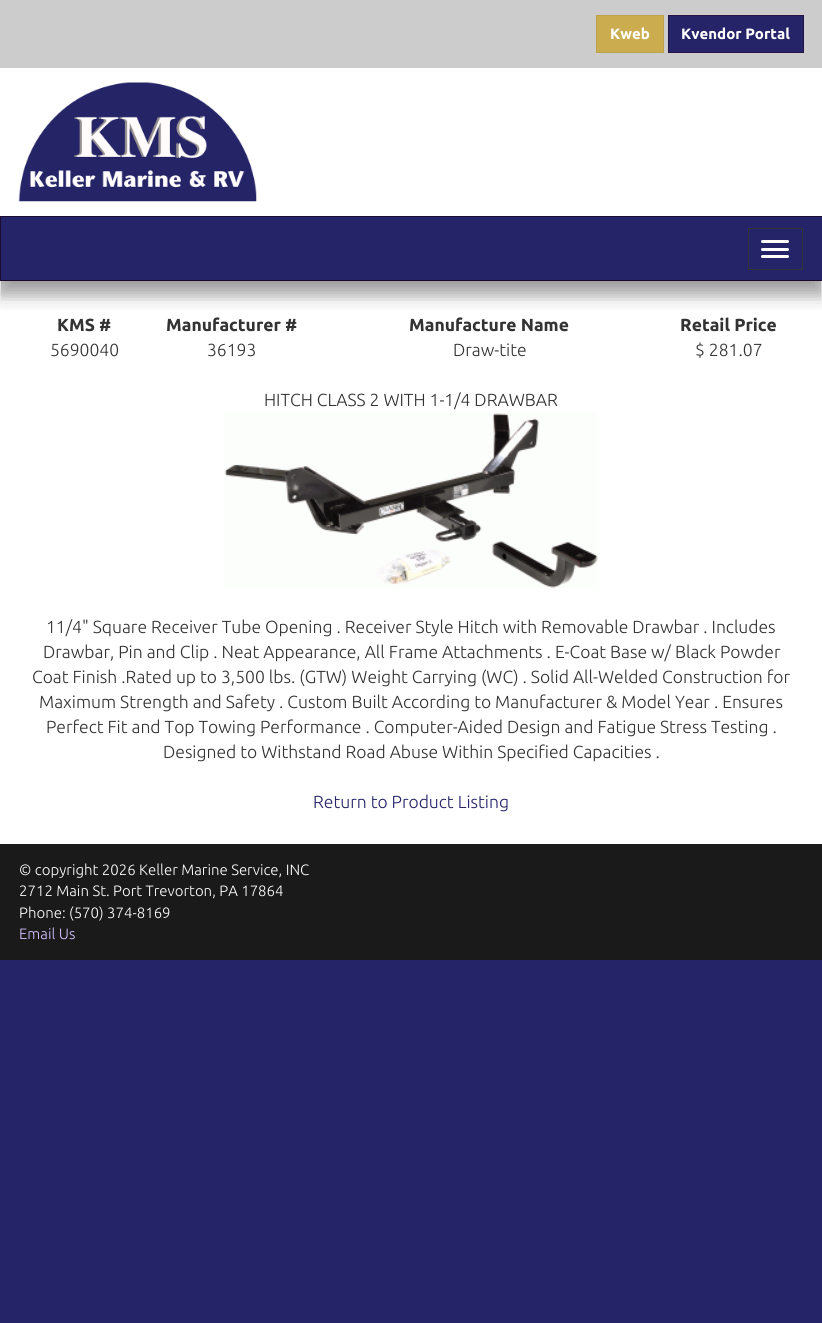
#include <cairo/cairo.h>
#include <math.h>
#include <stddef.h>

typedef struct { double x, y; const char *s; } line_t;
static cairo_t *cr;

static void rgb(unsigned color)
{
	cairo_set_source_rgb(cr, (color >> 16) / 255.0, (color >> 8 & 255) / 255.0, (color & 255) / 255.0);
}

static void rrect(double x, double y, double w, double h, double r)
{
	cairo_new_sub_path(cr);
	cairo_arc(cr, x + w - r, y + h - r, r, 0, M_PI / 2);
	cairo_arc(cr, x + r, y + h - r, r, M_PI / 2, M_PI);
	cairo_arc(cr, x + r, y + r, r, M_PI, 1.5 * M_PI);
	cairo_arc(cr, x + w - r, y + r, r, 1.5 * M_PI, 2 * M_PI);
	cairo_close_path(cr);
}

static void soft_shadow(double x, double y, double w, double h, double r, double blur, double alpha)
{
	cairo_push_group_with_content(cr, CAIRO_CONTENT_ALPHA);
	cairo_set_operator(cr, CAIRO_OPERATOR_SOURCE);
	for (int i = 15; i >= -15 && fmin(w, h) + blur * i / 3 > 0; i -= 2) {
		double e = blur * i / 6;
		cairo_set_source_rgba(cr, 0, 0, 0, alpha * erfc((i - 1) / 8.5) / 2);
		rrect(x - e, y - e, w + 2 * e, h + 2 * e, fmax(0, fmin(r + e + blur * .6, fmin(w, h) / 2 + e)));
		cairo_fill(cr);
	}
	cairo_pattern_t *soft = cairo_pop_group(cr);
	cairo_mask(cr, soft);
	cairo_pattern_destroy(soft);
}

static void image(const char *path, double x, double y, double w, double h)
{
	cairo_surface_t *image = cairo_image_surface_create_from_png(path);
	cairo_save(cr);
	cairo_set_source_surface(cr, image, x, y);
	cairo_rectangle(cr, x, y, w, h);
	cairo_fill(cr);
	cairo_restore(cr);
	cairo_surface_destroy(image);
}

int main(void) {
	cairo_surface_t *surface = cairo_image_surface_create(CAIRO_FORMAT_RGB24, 822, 1323);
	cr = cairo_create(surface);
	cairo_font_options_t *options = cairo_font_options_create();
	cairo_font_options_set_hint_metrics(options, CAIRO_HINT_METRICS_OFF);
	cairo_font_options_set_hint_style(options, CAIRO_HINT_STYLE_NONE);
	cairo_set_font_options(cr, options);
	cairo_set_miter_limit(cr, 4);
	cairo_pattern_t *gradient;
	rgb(0x252468);
	cairo_paint(cr);
	rgb(0xcccccc);
	cairo_rectangle(cr, 0, 0, 822, 68);
	cairo_fill(cr);
	rgb(0xcbad4f);
	cairo_rectangle(cr, 596.5, 15.5, 67, 37);
	cairo_fill_preserve(cr);
	rgb(0xbda14b);
	cairo_set_line_width(cr, 1);
	cairo_stroke(cr);
	rgb(0x252468);
	cairo_rectangle(cr, 668.5, 15.5, 135, 37);
	cairo_fill_preserve(cr);
	rgb(0x281347);
	cairo_stroke(cr);
	rgb(0xffffff);
	cairo_rectangle(cr, 0, 68, 822, 148);
	cairo_fill(cr);
	image("img/1.png", 18, 82, 239, 120);
	cairo_rectangle(cr, 0, 281, 822, 563);
	cairo_fill(cr);
	cairo_save(cr);
	cairo_rectangle(cr, 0, 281, 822, 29);
	cairo_clip(cr);
	rgb(0x000000);
	soft_shadow(0, 231, 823, 65, 0, 10, 0.25);
	cairo_restore(cr);
	cairo_rectangle(cr, 0.5, 216.5, 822, 64);
	rgb(0x1c0d33);
	cairo_stroke(cr);
	cairo_rectangle(cr, 748.5, 228.5, 54, 41);
	rgb(0x333333);
	cairo_stroke(cr);
	rgb(0xffffff);
	rrect(761, 240, 28, 3, 1.5);
	cairo_fill(cr);
	rrect(761, 248, 28, 3, 1.5);
	cairo_fill(cr);
	rrect(761, 255, 28, 3, 1.5);
	cairo_fill(cr);
	gradient = cairo_pattern_create_linear(411, 280, 411, 303);
	cairo_pattern_add_color_stop_rgba(gradient, 0, 0, 0, 0, 0.2);
	cairo_pattern_add_color_stop_rgba(gradient, 1, 0, 0, 0, 0);
	cairo_set_source(cr, gradient);
	cairo_pattern_destroy(gradient);
	cairo_rectangle(cr, 1, 280, 820, 21);
	cairo_fill(cr);
	image("img/2.png", 224, 413, 374, 175);
	rgb(0x1a1a1a);
	cairo_rectangle(cr, 0, 844, 822, 116);
	cairo_fill(cr);
	cairo_select_font_face(cr, "Ubuntu", CAIRO_FONT_SLANT_NORMAL, CAIRO_FONT_WEIGHT_BOLD);
	cairo_set_font_size(cr, 15);
	rgb(0xffffff);
	cairo_move_to(cr, 610, 39);
	cairo_show_text(cr, "Kweb");
	cairo_move_to(cr, 681, 39);
	cairo_show_text(cr, "Kvendor Portal");
	cairo_set_font_size(cr, 17.5);
	rgb(0x333333);
	{
		static const line_t items[] = {
			{57, 331, "KMS #"},
			{166, 331, "Manufacturer #"},
			{409, 331, "Manufacture Name"},
			{680, 331, "Retail Price"},
		};
		for (size_t i = 0; i < sizeof items / sizeof *items; i++) {
			cairo_move_to(cr, items[i].x, items[i].y);
			cairo_show_text(cr, items[i].s);
		}
	}
	cairo_select_font_face(cr, "Ubuntu Light", CAIRO_FONT_SLANT_NORMAL, CAIRO_FONT_WEIGHT_NORMAL);
	{
		static const line_t items[] = {
			{50, 356, "5690040"},
			{207, 356, "36193"},
			{453, 356, "Draw-tite"},
			{695, 356, "$ 281.07"},
			{264, 406, "HITCH CLASS 2 WITH 1-1/4 DRAWBAR"},
			{46, 633, "11/4\" Square Receiver Tube Opening . Receiver Style Hitch with Removable Drawbar . Includes"},
			{43, 658, "Drawbar, Pin and Clip . Neat Appearance, All Frame Attachments . E-Coat Base w/ Black Powder"},
			{32, 683, "Coat Finish .Rated up to 3,500 lbs. (GTW) Weight Carrying (WC) . Solid All-Welded Construction for"},
			{39, 708, "Maximum Strength and Safety . Custom Built According to Manufacturer & Model Year . Ensures"},
			{46, 733, "Perfect Fit and Top Towing Performance . Computer-Aided Design and Fatigue Stress Testing ."},
			{163, 758, "Designed to Withstand Road Abuse Within Specified Capacities ."},
		};
		for (size_t i = 0; i < sizeof items / sizeof *items; i++) {
			cairo_move_to(cr, items[i].x, items[i].y);
			cairo_show_text(cr, items[i].s);
		}
	}
	rgb(0x252468);
	cairo_move_to(cr, 313, 808);
	cairo_show_text(cr, "Return to Product Listing");
	cairo_set_font_size(cr, 15);
	rgb(0xffffff);
	{
		static const line_t items[] = {
			{19, 875, "© copyright 2026 Keller Marine Service, INC"},
			{19, 896, "2712 Main St. Port Trevorton, PA 17864"},
			{19, 918, "Phone: (570) 374-8169"},
		};
		for (size_t i = 0; i < sizeof items / sizeof *items; i++) {
			cairo_move_to(cr, items[i].x, items[i].y);
			cairo_show_text(cr, items[i].s);
		}
	}
	rgb(0xd5c1ff);
	cairo_move_to(cr, 19, 939);
	cairo_show_text(cr, "Email Us");
	cairo_surface_write_to_png(surface, "page.png");
	cairo_font_options_destroy(options);
	cairo_destroy(cr);
	cairo_surface_destroy(surface);
	return 0;
}
